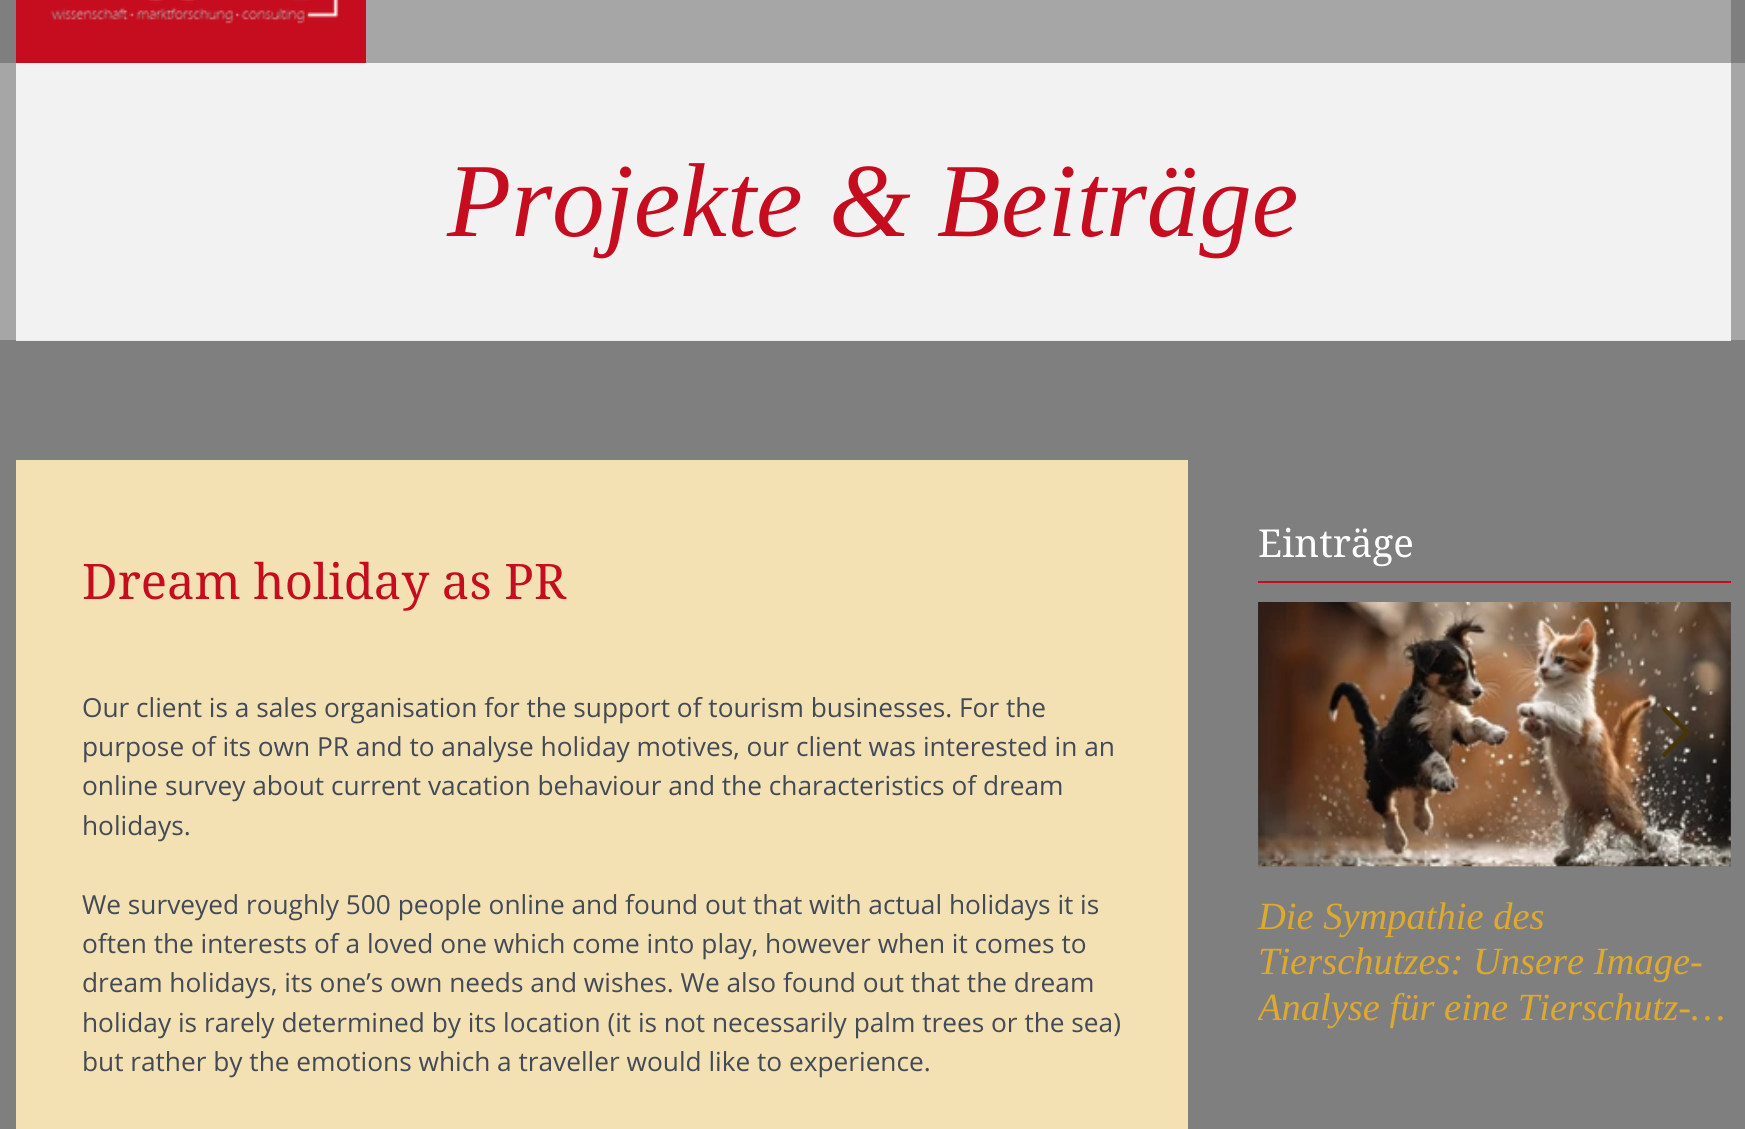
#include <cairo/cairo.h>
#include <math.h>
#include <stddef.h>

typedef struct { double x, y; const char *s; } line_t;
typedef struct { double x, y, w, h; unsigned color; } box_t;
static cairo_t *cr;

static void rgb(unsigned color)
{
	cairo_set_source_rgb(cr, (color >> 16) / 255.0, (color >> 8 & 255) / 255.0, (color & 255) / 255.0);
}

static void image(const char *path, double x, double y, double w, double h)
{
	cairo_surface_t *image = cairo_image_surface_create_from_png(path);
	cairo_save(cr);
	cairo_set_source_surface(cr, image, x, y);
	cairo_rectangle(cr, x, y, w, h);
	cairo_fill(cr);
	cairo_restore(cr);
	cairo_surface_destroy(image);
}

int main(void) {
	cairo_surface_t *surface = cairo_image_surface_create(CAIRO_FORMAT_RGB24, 1745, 1129);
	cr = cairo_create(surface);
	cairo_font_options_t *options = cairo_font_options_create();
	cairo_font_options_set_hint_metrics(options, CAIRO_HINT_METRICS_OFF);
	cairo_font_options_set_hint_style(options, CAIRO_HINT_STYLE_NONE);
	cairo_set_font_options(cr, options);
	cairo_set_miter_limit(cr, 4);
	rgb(0x7f7f7f);
	cairo_paint(cr);
	rgb(0xc60d1f);
	cairo_rectangle(cr, 16, 0, 350, 63);
	cairo_fill(cr);
	image("img/1.png", 50, 0, 289, 24);
	{
		static const box_t items[] = {
			{366, 0, 1365, 63, 0xa6a6a6},
			{0, 63, 1745, 277, 0xa6a6a6},
			{16, 63, 1715, 277, 0xf2f2f2},
			{16, 460, 1172, 669, 0xf3e0b3},
			{1258, 581, 473, 2, 0xc60d1f},
		};
		for (size_t i = 0; i < sizeof items / sizeof *items; i++) {
			rgb(items[i].color);
			cairo_rectangle(cr, items[i].x, items[i].y, items[i].w, items[i].h);
			cairo_fill(cr);
		}
	}
	image("img/2.png", 1258, 602, 473, 265);
	image("img/3.png", 1258, 602, 473, 265);
	cairo_set_source_rgba(cr, 0.286, 0.208, 0.031, 0.9);
	cairo_new_path(cr);
	cairo_move_to(cr, 1662, 709);
	cairo_line_to(cr, 1664, 707);
	cairo_line_to(cr, 1689, 732);
	cairo_line_to(cr, 1664, 757);
	cairo_line_to(cr, 1662, 755);
	cairo_line_to(cr, 1685, 732);
	cairo_close_path(cr);
	cairo_fill(cr);
	cairo_new_path(cr);
	cairo_move_to(cr, 1662.5, 709.5);
	cairo_line_to(cr, 1664.5, 707.5);
	cairo_line_to(cr, 1689.5, 732);
	cairo_line_to(cr, 1664.5, 756.5);
	cairo_line_to(cr, 1662.5, 754.5);
	cairo_line_to(cr, 1685, 732);
	cairo_close_path(cr);
	cairo_set_line_width(cr, 1.4);
	cairo_stroke(cr);
	rgb(0xececec);
	cairo_rectangle(cr, 16, 340, 1715, 1);
	cairo_fill(cr);
	cairo_select_font_face(cr, "Liberation Serif", CAIRO_FONT_SLANT_ITALIC, CAIRO_FONT_WEIGHT_NORMAL);
	cairo_set_font_size(cr, 105);
	rgb(0xc60d1f);
	cairo_move_to(cr, 447, 236);
	cairo_show_text(cr, "Projekte & Beiträge");
	cairo_select_font_face(cr, "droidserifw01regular", CAIRO_FONT_SLANT_NORMAL, CAIRO_FONT_WEIGHT_NORMAL);
	cairo_set_font_size(cr, 38.5);
	rgb(0xffffff);
	cairo_move_to(cr, 1258, 557);
	cairo_show_text(cr, "Einträge");
	cairo_set_font_size(cr, 49);
	rgb(0xc60d1f);
	cairo_move_to(cr, 82, 599);
	cairo_show_text(cr, "Dream holiday as PR");
	cairo_select_font_face(cr, "Open Sans", CAIRO_FONT_SLANT_NORMAL, CAIRO_FONT_WEIGHT_NORMAL);
	cairo_set_font_size(cr, 26.25);
	rgb(0x424a56);
	{
		static const line_t items[] = {
			{82, 717, "Our client is a sales organisation for the support of tourism businesses. For the"},
			{82, 756, "purpose of its own PR and to analyse holiday motives, our client was interested in an"},
			{82, 795, "online survey about current vacation behaviour and the characteristics of dream"},
			{82, 835, "holidays."},
			{82, 914, "We surveyed roughly 500 people online and found out that with actual holidays it is"},
			{82, 953, "often the interests of a loved one which come into play, however when it comes to"},
			{82, 992, "dream holidays, its one’s own needs and wishes. We also found out that the dream"},
			{82, 1032, "holiday is rarely determined by its location (it is not necessarily palm trees or the sea)"},
			{82, 1071, "but rather by the emotions which a traveller would like to experience."},
		};
		for (size_t i = 0; i < sizeof items / sizeof *items; i++) {
			cairo_move_to(cr, items[i].x, items[i].y);
			cairo_show_text(cr, items[i].s);
		}
	}
	cairo_select_font_face(cr, "Liberation Serif", CAIRO_FONT_SLANT_ITALIC, CAIRO_FONT_WEIGHT_NORMAL);
	cairo_set_font_size(cr, 38.5);
	rgb(0xdda92e);
	cairo_move_to(cr, 1258, 929);
	cairo_show_text(cr, "Die Sympathie des");
	cairo_move_to(cr, 1258, 974);
	cairo_show_text(cr, "Tierschutzes: Unsere Image-");
	cairo_save(cr);
	cairo_rectangle(cr, 1258, 894, 473, 137);
	cairo_clip(cr);
	cairo_move_to(cr, 1258, 1020);
	cairo_show_text(cr, "Analyse für eine Tierschutz-…");
	cairo_restore(cr);
	cairo_surface_write_to_png(surface, "page.png");
	cairo_font_options_destroy(options);
	cairo_destroy(cr);
	cairo_surface_destroy(surface);
	return 0;
}
